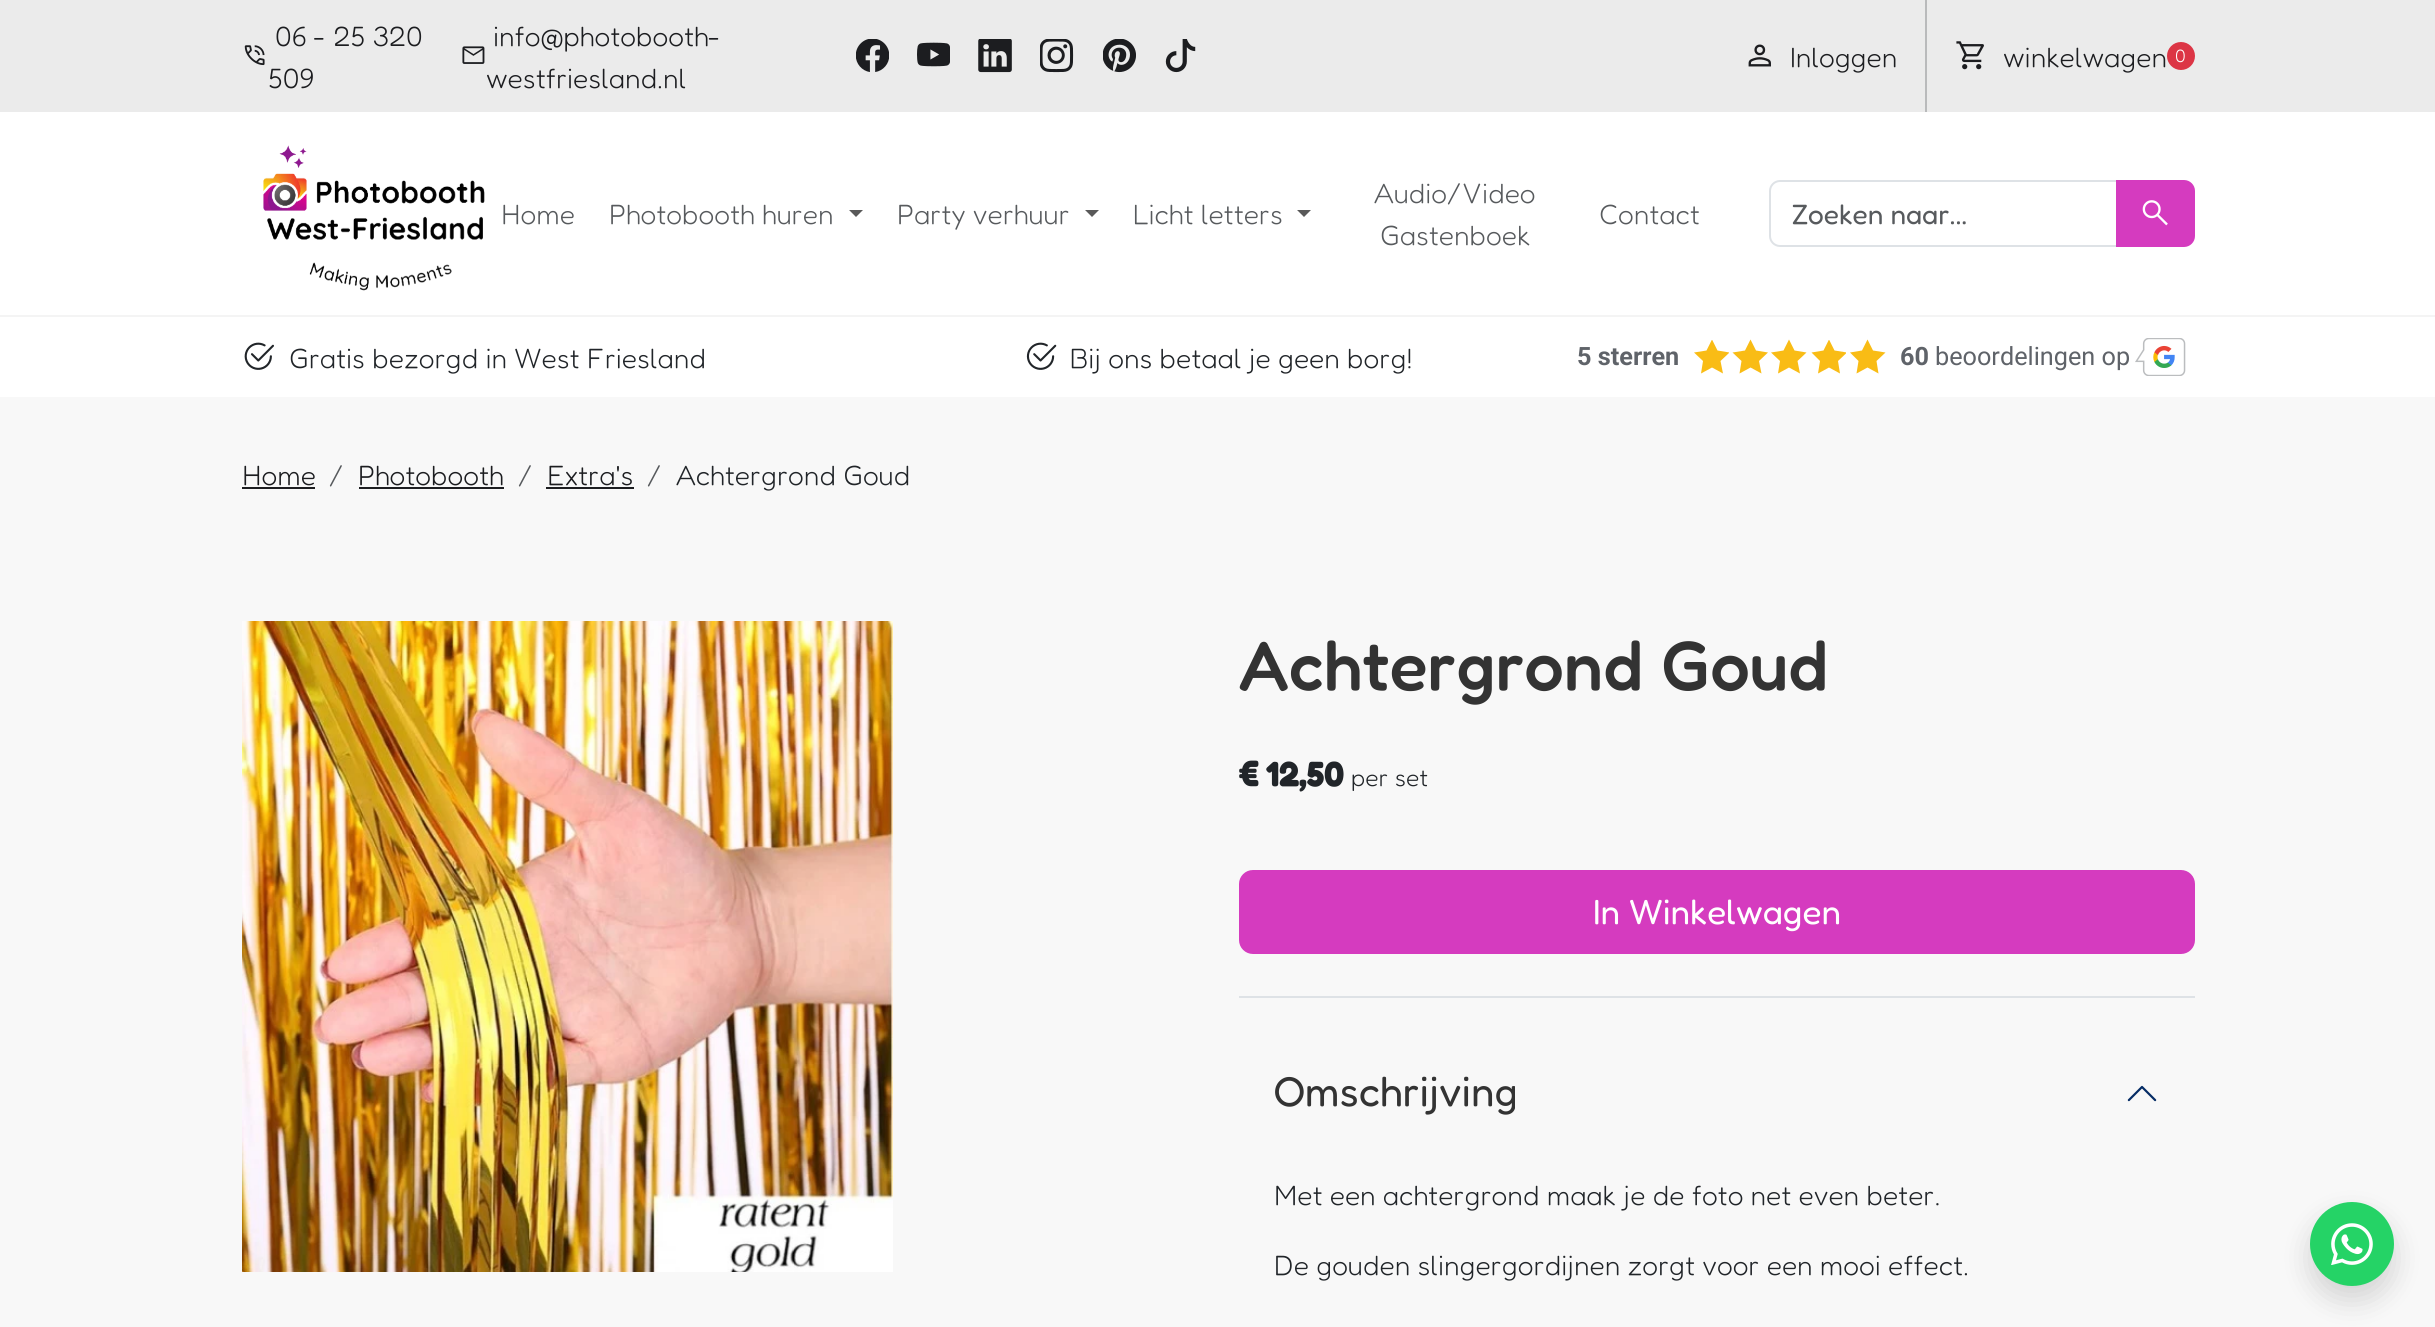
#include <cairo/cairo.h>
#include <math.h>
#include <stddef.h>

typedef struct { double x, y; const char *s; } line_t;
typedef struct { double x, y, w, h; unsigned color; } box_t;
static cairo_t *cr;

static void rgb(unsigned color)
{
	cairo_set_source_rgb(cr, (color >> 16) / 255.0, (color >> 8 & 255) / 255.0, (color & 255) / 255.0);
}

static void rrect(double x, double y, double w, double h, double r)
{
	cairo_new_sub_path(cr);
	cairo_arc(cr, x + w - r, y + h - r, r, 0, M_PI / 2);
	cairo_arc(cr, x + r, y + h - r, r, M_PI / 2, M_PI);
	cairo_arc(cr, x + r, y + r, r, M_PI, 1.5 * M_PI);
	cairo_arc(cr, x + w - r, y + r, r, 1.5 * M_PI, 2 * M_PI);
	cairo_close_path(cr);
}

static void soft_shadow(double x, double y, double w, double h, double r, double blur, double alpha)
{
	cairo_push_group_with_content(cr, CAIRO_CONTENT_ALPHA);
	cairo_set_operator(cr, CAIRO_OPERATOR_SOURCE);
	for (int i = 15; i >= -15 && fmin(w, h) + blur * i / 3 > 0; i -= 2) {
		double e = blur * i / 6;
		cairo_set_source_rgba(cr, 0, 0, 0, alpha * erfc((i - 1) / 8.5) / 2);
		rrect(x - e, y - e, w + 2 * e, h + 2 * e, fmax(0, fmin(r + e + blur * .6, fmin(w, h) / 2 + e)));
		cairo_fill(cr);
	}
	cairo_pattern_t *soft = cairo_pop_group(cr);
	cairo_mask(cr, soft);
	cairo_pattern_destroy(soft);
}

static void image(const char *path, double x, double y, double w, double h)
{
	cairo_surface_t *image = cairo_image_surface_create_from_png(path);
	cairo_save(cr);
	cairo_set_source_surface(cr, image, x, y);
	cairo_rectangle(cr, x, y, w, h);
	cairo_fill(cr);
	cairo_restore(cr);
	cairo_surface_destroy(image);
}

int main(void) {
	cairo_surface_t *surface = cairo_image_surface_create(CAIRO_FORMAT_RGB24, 2435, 1327);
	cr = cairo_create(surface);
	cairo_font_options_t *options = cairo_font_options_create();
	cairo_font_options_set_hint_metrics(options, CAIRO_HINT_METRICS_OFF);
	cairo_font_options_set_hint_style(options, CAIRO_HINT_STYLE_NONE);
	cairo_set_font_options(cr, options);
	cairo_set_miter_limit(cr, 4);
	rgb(0xf8f8f8);
	cairo_paint(cr);
	rgb(0xebebeb);
	cairo_rectangle(cr, 0, 0, 2435, 112);
	cairo_fill(cr);
	image("img/1.png", 244, 45, 21, 21);
	image("img/2.png", 462, 46, 23, 18);
	image("img/3.png", 856, 39, 33, 33);
	image("img/4.png", 917, 42, 33, 25);
	image("img/5.png", 978, 39, 34, 34);
	image("img/6.png", 1040, 39, 34, 34);
	image("img/7.png", 1103, 39, 33, 34);
	image("img/8.png", 1165, 39, 31, 34);
	image("img/9.png", 1748, 44, 23, 23);
	rgb(0xb9babb);
	cairo_rectangle(cr, 1925, 0, 2, 112);
	cairo_fill(cr);
	image("img/10.png", 1956, 41, 28, 29);
	rgb(0xdc3545);
	cairo_arc(cr, 2181, 56, 14, 0, 2 * M_PI);
	cairo_fill(cr);
	rgb(0xffffff);
	cairo_rectangle(cr, 0, 112, 2435, 203);
	cairo_fill(cr);
	image("img/11.png", 263, 145, 222, 146);
	rgb(0x595959);
	cairo_new_path(cr);
	cairo_move_to(cr, 849, 210);
	cairo_line_to(cr, 863, 210);
	cairo_line_to(cr, 856, 217);
	cairo_close_path(cr);
	cairo_fill(cr);
	cairo_new_path(cr);
	cairo_move_to(cr, 1085, 210);
	cairo_line_to(cr, 1099, 210);
	cairo_line_to(cr, 1092, 217);
	cairo_close_path(cr);
	cairo_fill(cr);
	cairo_new_path(cr);
	cairo_move_to(cr, 1297, 210);
	cairo_line_to(cr, 1311, 210);
	cairo_line_to(cr, 1304, 217);
	cairo_close_path(cr);
	cairo_fill(cr);
	cairo_new_path(cr);
	cairo_move_to(cr, 1780, 181);
	cairo_line_to(cr, 2117, 181);
	cairo_line_to(cr, 2117, 246);
	cairo_line_to(cr, 1780, 246);
	cairo_curve_to(cr, 1774.5, 246, 1770, 241.5, 1770, 236);
	cairo_line_to(cr, 1770, 191);
	cairo_curve_to(cr, 1770, 185.5, 1774.5, 181, 1780, 181);
	cairo_close_path(cr);
	rgb(0xdee2e6);
	cairo_stroke(cr);
	rgb(0xd53bbf);
	cairo_new_path(cr);
	cairo_move_to(cr, 2117, 181);
	cairo_line_to(cr, 2184, 181);
	cairo_curve_to(cr, 2189.5, 181, 2194, 185.5, 2194, 191);
	cairo_line_to(cr, 2194, 236);
	cairo_curve_to(cr, 2194, 241.5, 2189.5, 246, 2184, 246);
	cairo_line_to(cr, 2117, 246);
	cairo_close_path(cr);
	cairo_fill_preserve(cr);
	cairo_stroke(cr);
	image("img/12.png", 2142, 200, 26, 26);
	rgb(0xffffff);
	cairo_rectangle(cr, 0, 317, 2435, 80);
	cairo_fill(cr);
	rgb(0xf4f4f4);
	cairo_rectangle(cr, 0, 315, 2435, 2);
	cairo_fill(cr);
	image("img/13.png", 244, 342, 30, 28);
	image("img/14.png", 1026, 342, 31, 28);
	cairo_save(cr);
	cairo_rectangle(cr, 1694, 340, 35, 35);
	cairo_clip(cr);
	rgb(0xf9bc15);
	cairo_new_path(cr);
	cairo_move_to(cr, 1712, 339.5);
	cairo_line_to(cr, 1717.5, 350.5);
	cairo_line_to(cr, 1729.5, 352.5);
	cairo_line_to(cr, 1720.5, 361);
	cairo_line_to(cr, 1723, 373.5);
	cairo_line_to(cr, 1712, 367.5);
	cairo_line_to(cr, 1701, 373.5);
	cairo_line_to(cr, 1703, 361);
	cairo_line_to(cr, 1694, 352.5);
	cairo_line_to(cr, 1706.5, 350.5);
	cairo_close_path(cr);
	cairo_fill(cr);
	cairo_restore(cr);
	rgb(0xf9bc15);
	cairo_new_path(cr);
	cairo_move_to(cr, 1750.5, 339.5);
	cairo_line_to(cr, 1756, 350.5);
	cairo_line_to(cr, 1768, 352.5);
	cairo_line_to(cr, 1759, 361);
	cairo_line_to(cr, 1761.5, 373.5);
	cairo_line_to(cr, 1750.5, 367.5);
	cairo_line_to(cr, 1739.5, 373.5);
	cairo_line_to(cr, 1741.5, 361);
	cairo_line_to(cr, 1732.5, 352.5);
	cairo_line_to(cr, 1745, 350.5);
	cairo_close_path(cr);
	cairo_fill(cr);
	cairo_new_path(cr);
	cairo_move_to(cr, 1789, 339.5);
	cairo_line_to(cr, 1794.5, 350.5);
	cairo_line_to(cr, 1806.5, 352.5);
	cairo_line_to(cr, 1797.5, 361);
	cairo_line_to(cr, 1800, 373.5);
	cairo_line_to(cr, 1789, 367.5);
	cairo_line_to(cr, 1778, 373.5);
	cairo_line_to(cr, 1780, 361);
	cairo_line_to(cr, 1771, 352.5);
	cairo_line_to(cr, 1783.5, 350.5);
	cairo_close_path(cr);
	cairo_fill(cr);
	cairo_save(cr);
	cairo_rectangle(cr, 1811, 340, 35, 35);
	cairo_clip(cr);
	cairo_new_path(cr);
	cairo_move_to(cr, 1829, 339.5);
	cairo_line_to(cr, 1834.5, 350.5);
	cairo_line_to(cr, 1847, 352.5);
	cairo_line_to(cr, 1838, 361);
	cairo_line_to(cr, 1840, 373.5);
	cairo_line_to(cr, 1829, 367.5);
	cairo_line_to(cr, 1818, 373.5);
	cairo_line_to(cr, 1820, 361);
	cairo_line_to(cr, 1811.5, 352.5);
	cairo_line_to(cr, 1823.5, 350.5);
	cairo_close_path(cr);
	cairo_fill(cr);
	cairo_restore(cr);
	cairo_new_path(cr);
	cairo_move_to(cr, 1867.5, 339.5);
	cairo_line_to(cr, 1873, 350.5);
	cairo_line_to(cr, 1885.5, 352.5);
	cairo_line_to(cr, 1876.5, 361);
	cairo_line_to(cr, 1878.5, 373.5);
	cairo_line_to(cr, 1867.5, 367.5);
	cairo_line_to(cr, 1856.5, 373.5);
	cairo_line_to(cr, 1858.5, 361);
	cairo_line_to(cr, 1850, 352.5);
	cairo_line_to(cr, 1862, 350.5);
	cairo_close_path(cr);
	cairo_fill(cr);
	image("img/15.png", 2135, 338, 51, 38);
	{
		static const box_t items[] = {
			{242, 487, 73, 2, 0x1c1d20},
			{359, 487, 145, 2, 0x1c1d20},
			{546, 487, 88, 2, 0x1c1d20},
		};
		for (size_t i = 0; i < sizeof items / sizeof *items; i++) {
			rgb(items[i].color);
			cairo_rectangle(cr, items[i].x, items[i].y, items[i].w, items[i].h);
			cairo_fill(cr);
		}
	}
	image("img/16.png", 242, 621, 651, 651);
	rgb(0xd53bbf);
	rrect(1240, 871, 954, 82, 13);
	cairo_fill_preserve(cr);
	cairo_stroke(cr);
	rgb(0xdee2e6);
	cairo_rectangle(cr, 1239, 996, 956, 2);
	cairo_fill(cr);
	image("img/17.png", 2127, 1085, 30, 17);
	rgb(0x000000);
	soft_shadow(2310, 1216, 84, 84, 42, 14, 0.15);
	rgb(0x25d366);
	cairo_arc(cr, 2352, 1244, 42, 0, 2 * M_PI);
	cairo_fill(cr);
	image("img/18.png", 2331, 1223, 42, 42);
	cairo_select_font_face(cr, "Fredoka Light", CAIRO_FONT_SLANT_NORMAL, CAIRO_FONT_WEIGHT_NORMAL);
	cairo_set_font_size(cr, 28);
	rgb(0x1c1d20);
	{
		static const line_t items[] = {
			{275, 46, "06 - 25 320"},
			{268, 88, "509"},
			{493, 46, "info@photobooth-"},
			{486, 88, "westfriesland.nl"},
			{1790, 67, "Inloggen"},
			{2003, 67, "winkelwagen"},
		};
		for (size_t i = 0; i < sizeof items / sizeof *items; i++) {
			cairo_move_to(cr, items[i].x, items[i].y);
			cairo_show_text(cr, items[i].s);
		}
	}
	cairo_set_font_size(cr, 18);
	rgb(0xffffff);
	cairo_move_to(cr, 2175, 62);
	cairo_show_text(cr, "0");
	cairo_set_font_size(cr, 28);
	rgb(0x575a5d);
	{
		static const line_t items[] = {
			{501, 224, "Home"},
			{609, 224, "Photobooth huren"},
			{897, 224, "Party verhuur"},
			{1133, 224, "Licht letters"},
			{1374, 203, "Audio/Video"},
			{1380, 245, "Gastenboek"},
			{1599, 224, "Contact"},
		};
		for (size_t i = 0; i < sizeof items / sizeof *items; i++) {
			cairo_move_to(cr, items[i].x, items[i].y);
			cairo_show_text(cr, items[i].s);
		}
	}
	cairo_select_font_face(cr, "Fredoka", CAIRO_FONT_SLANT_NORMAL, CAIRO_FONT_WEIGHT_NORMAL);
	cairo_move_to(cr, 1792, 224);
	cairo_show_text(cr, "Zoeken naar...");
	cairo_select_font_face(cr, "Fredoka Light", CAIRO_FONT_SLANT_NORMAL, CAIRO_FONT_WEIGHT_NORMAL);
	rgb(0x212529);
	cairo_move_to(cr, 289, 368);
	cairo_show_text(cr, "Gratis bezorgd in West Friesland");
	cairo_move_to(cr, 1070, 368);
	cairo_show_text(cr, "Bij ons betaal je geen borg!");
	cairo_select_font_face(cr, "Roboto", CAIRO_FONT_SLANT_NORMAL, CAIRO_FONT_WEIGHT_BOLD);
	cairo_set_font_size(cr, 25.25);
	rgb(0x5f6369);
	cairo_move_to(cr, 1577, 365);
	cairo_show_text(cr, "5 sterren");
	cairo_move_to(cr, 1900, 365);
	cairo_show_text(cr, "60");
	cairo_select_font_face(cr, "Roboto", CAIRO_FONT_SLANT_NORMAL, CAIRO_FONT_WEIGHT_NORMAL);
	cairo_move_to(cr, 1935, 365);
	cairo_show_text(cr, "beoordelingen op");
	cairo_select_font_face(cr, "Fredoka Light", CAIRO_FONT_SLANT_NORMAL, CAIRO_FONT_WEIGHT_NORMAL);
	cairo_set_font_size(cr, 28);
	rgb(0x1c1d20);
	cairo_move_to(cr, 242, 485);
	cairo_show_text(cr, "Home");
	rgb(0x575a5d);
	cairo_move_to(cr, 329, 485);
	cairo_show_text(cr, "/");
	rgb(0x1c1d20);
	cairo_move_to(cr, 358, 485);
	cairo_show_text(cr, "Photobooth");
	rgb(0x575a5d);
	cairo_move_to(cr, 518, 485);
	cairo_show_text(cr, "/");
	rgb(0x1c1d20);
	cairo_move_to(cr, 547, 485);
	cairo_show_text(cr, "Extra's");
	rgb(0x575a5d);
	cairo_move_to(cr, 647, 485);
	cairo_show_text(cr, "/");
	rgb(0x212529);
	cairo_move_to(cr, 676, 485);
	cairo_show_text(cr, "Achtergrond Goud");
	cairo_select_font_face(cr, "Fredoka Medium", CAIRO_FONT_SLANT_NORMAL, CAIRO_FONT_WEIGHT_NORMAL);
	cairo_set_font_size(cr, 70);
	rgb(0x333333);
	cairo_move_to(cr, 1239, 690);
	cairo_show_text(cr, "Achtergrond Goud");
	cairo_select_font_face(cr, "Fredoka", CAIRO_FONT_SLANT_NORMAL, CAIRO_FONT_WEIGHT_BOLD);
	cairo_set_font_size(cr, 35);
	rgb(0x212529);
	cairo_move_to(cr, 1239, 786);
	cairo_show_text(cr, "€");
	cairo_move_to(cr, 1266, 786);
	cairo_show_text(cr, "12,50");
	cairo_select_font_face(cr, "Fredoka Light", CAIRO_FONT_SLANT_NORMAL, CAIRO_FONT_WEIGHT_NORMAL);
	cairo_set_font_size(cr, 24.5);
	cairo_move_to(cr, 1351, 786);
	cairo_show_text(cr, "per set");
	cairo_select_font_face(cr, "Fredoka", CAIRO_FONT_SLANT_NORMAL, CAIRO_FONT_WEIGHT_NORMAL);
	cairo_set_font_size(cr, 35);
	rgb(0xffffff);
	cairo_move_to(cr, 1593, 924);
	cairo_show_text(cr, "In Winkelwagen");
	cairo_set_font_size(cr, 42);
	rgb(0x333333);
	cairo_move_to(cr, 1274, 1106);
	cairo_show_text(cr, "Omschrijving");
	cairo_select_font_face(cr, "Fredoka Light", CAIRO_FONT_SLANT_NORMAL, CAIRO_FONT_WEIGHT_NORMAL);
	cairo_set_font_size(cr, 28);
	rgb(0x212529);
	cairo_move_to(cr, 1274, 1205);
	cairo_show_text(cr, "Met een achtergrond maak je de foto net even beter.");
	cairo_move_to(cr, 1274, 1275);
	cairo_show_text(cr, "De gouden slingergordijnen zorgt voor een mooi effect.");
	cairo_surface_write_to_png(surface, "page.png");
	cairo_font_options_destroy(options);
	cairo_destroy(cr);
	cairo_surface_destroy(surface);
	return 0;
}
